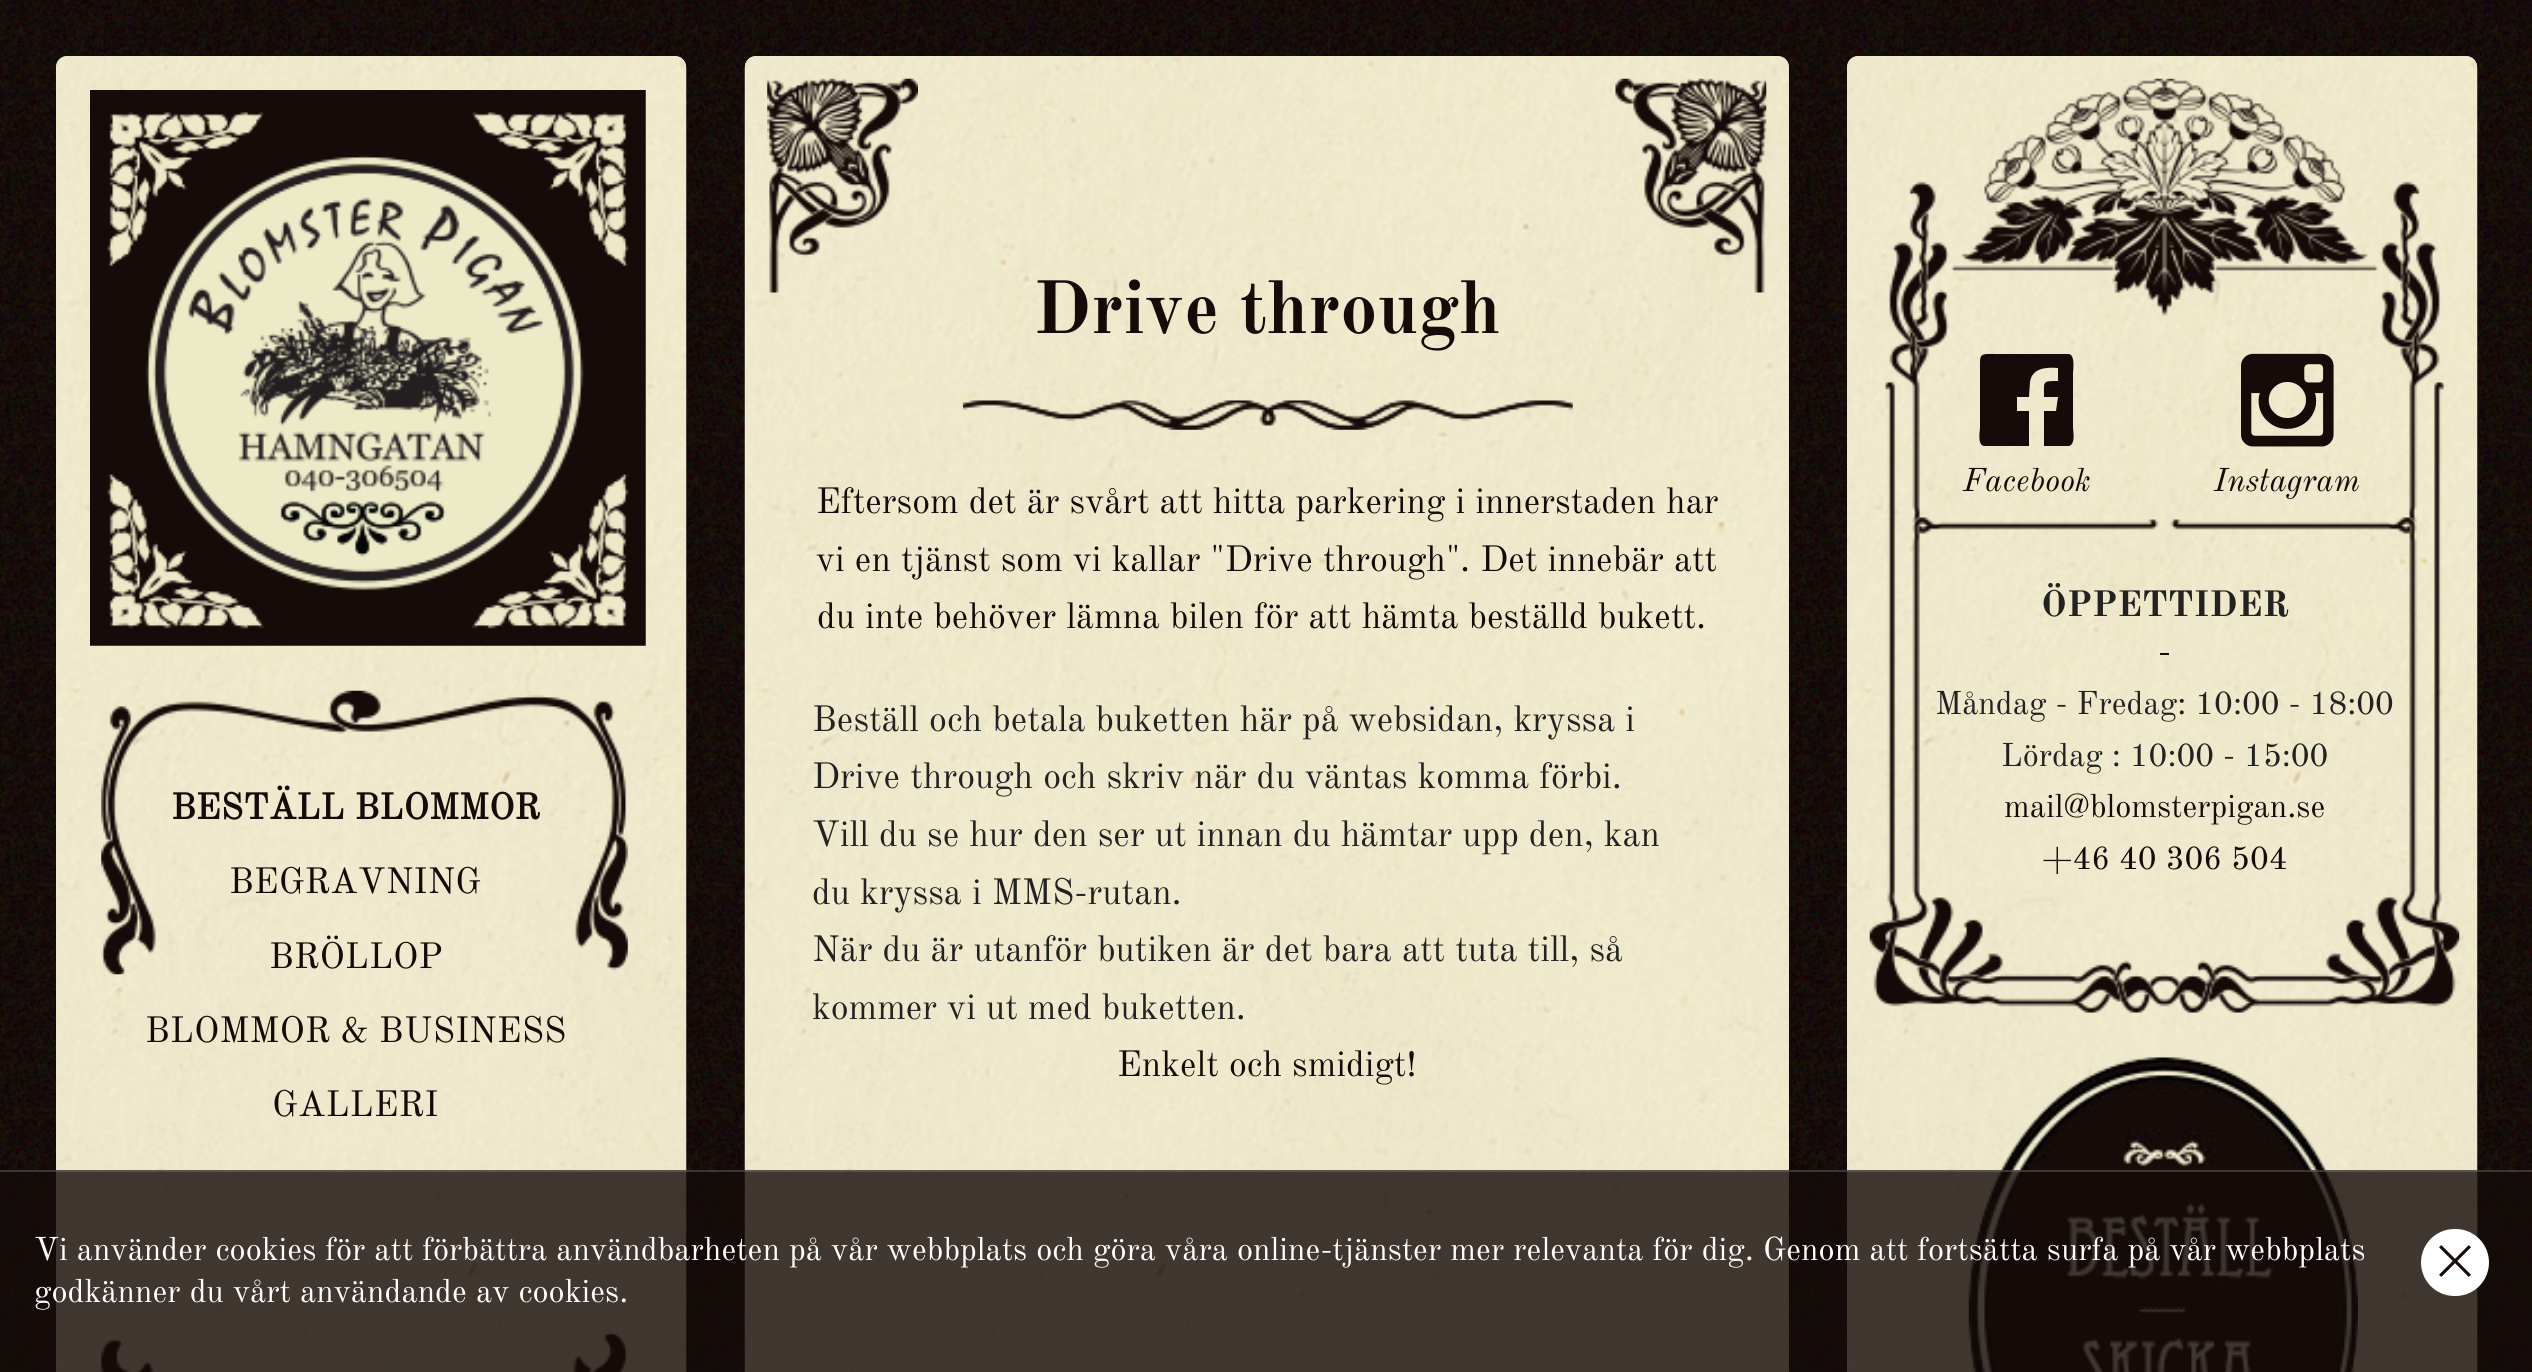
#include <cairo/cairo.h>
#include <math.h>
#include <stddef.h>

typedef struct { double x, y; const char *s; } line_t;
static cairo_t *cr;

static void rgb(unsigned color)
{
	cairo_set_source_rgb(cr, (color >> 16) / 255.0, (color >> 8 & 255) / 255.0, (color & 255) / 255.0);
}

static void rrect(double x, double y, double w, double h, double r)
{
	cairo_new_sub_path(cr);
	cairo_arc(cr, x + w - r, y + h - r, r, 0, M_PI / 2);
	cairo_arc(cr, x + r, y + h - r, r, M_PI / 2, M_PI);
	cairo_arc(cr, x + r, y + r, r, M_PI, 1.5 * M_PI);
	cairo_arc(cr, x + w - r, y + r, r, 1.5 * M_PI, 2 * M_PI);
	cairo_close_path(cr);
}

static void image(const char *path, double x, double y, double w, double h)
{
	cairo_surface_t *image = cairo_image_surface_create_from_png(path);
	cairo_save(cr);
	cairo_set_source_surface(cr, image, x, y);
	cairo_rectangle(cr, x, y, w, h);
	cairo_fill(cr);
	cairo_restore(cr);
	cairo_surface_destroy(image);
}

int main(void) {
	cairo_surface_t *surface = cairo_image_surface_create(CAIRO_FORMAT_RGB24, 2532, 1372);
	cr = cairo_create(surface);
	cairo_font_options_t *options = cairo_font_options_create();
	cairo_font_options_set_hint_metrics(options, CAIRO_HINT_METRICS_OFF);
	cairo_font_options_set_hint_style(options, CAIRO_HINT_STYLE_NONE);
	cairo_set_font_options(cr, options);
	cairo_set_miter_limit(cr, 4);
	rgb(0xffffff);
	cairo_paint(cr);
	image("img/1.png", 0, 0, 2532, 1372);
	rgb(0xede8c7);
	rrect(745, 56, 1044, 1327, 11);
	cairo_fill(cr);
	image("img/2.png", 744, 56, 1045, 1316);
	image("img/3.png", 767, 78, 151, 215);
	image("img/4.png", 1615, 78, 152, 215);
	image("img/5.png", 963, 400, 610, 30);
	rrect(1847, 56, 630, 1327, 11);
	cairo_fill(cr);
	image("img/6.png", 1847, 56, 631, 1316);
	image("img/7.png", 1869, 78, 591, 935);
	rgb(0x150c09);
	cairo_new_path(cr);
	cairo_move_to(cr, 2067, 354);
	cairo_curve_to(cr, 2069, 354, 2070, 354, 2071, 355);
	cairo_curve_to(cr, 2075, 359, 2073, 372, 2073, 373);
	cairo_line_to(cr, 2073, 428);
	cairo_curve_to(cr, 2073, 430, 2076, 444, 2069, 446);
	cairo_line_to(cr, 2044, 446);
	cairo_line_to(cr, 2044, 411);
	cairo_line_to(cr, 2056, 411);
	cairo_line_to(cr, 2058, 397);
	cairo_line_to(cr, 2044, 397);
	cairo_curve_to(cr, 2044, 381, 2042, 381, 2058, 381);
	cairo_line_to(cr, 2058, 368);
	cairo_curve_to(cr, 2046, 367, 2032, 368, 2030, 382);
	cairo_line_to(cr, 2029, 397);
	cairo_line_to(cr, 2017, 397);
	cairo_line_to(cr, 2017, 411);
	cairo_line_to(cr, 2029, 411);
	cairo_line_to(cr, 2029, 446);
	cairo_line_to(cr, 1984, 446);
	cairo_curve_to(cr, 1977, 445, 1980, 430, 1980, 428);
	cairo_line_to(cr, 1980, 373);
	cairo_curve_to(cr, 1980, 352, 1978, 354, 1999, 354);
	cairo_close_path(cr);
	cairo_fill(cr);
	image("img/8.png", 2241, 353, 93, 94);
	cairo_rectangle(cr, 2160, 653, 9, 2);
	cairo_fill(cr);
	image("img/9.png", 1968, 1057, 390, 315);
	rgb(0xede8c7);
	rrect(56, 56, 630, 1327, 11);
	cairo_fill(cr);
	image("img/10.png", 56, 56, 631, 1316);
	image("img/11.png", 90, 90, 556, 556);
	image("img/12.png", 101, 690, 527, 285);
	image("img/13.png", 101, 1334, 527, 38);
	cairo_set_source_rgba(cr, 0.082, 0.047, 0.035, 0.8);
	cairo_rectangle(cr, 0, 1170, 2532, 202);
	cairo_fill(cr);
	cairo_set_source_rgba(cr, 0.608, 0.608, 0.608, 0.3);
	cairo_rectangle(cr, 0, 1170, 2532, 2);
	cairo_fill(cr);
	rgb(0xffffff);
	rrect(2423.5, 1231.5, 63, 62, 31);
	cairo_fill_preserve(cr);
	cairo_set_line_width(cr, 5);
	cairo_stroke(cr);
	cairo_select_font_face(cr, "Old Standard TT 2", CAIRO_FONT_SLANT_NORMAL, CAIRO_FONT_WEIGHT_BOLD);
	cairo_set_font_size(cr, 74);
	rgb(0x150c09);
	cairo_move_to(cr, 1033, 333);
	cairo_show_text(cr, "Drive through");
	cairo_select_font_face(cr, "Old Standard TT", CAIRO_FONT_SLANT_NORMAL, CAIRO_FONT_WEIGHT_NORMAL);
	cairo_set_font_size(cr, 36);
	{
		static const line_t items[] = {
			{816, 513, "Eftersom det är svårt att hitta parkering i innerstaden har"},
			{816, 571, "vi en tjänst som vi kallar \"Drive through\". Det innebär att"},
			{817, 628, "du inte behöver lämna bilen för att hämta beställd bukett."},
		};
		for (size_t i = 0; i < sizeof items / sizeof *items; i++) {
			cairo_move_to(cr, items[i].x, items[i].y);
			cairo_show_text(cr, items[i].s);
		}
	}
	rgb(0x222222);
	{
		static const line_t items[] = {
			{812, 731, "Beställ och betala buketten här på websidan, kryssa i"},
			{812, 788, "Drive through och skriv när du väntas komma förbi."},
			{812, 846, "Vill du se hur den ser ut innan du hämtar upp den, kan"},
			{812, 904, "du kryssa i MMS-rutan."},
			{812, 961, "När du är utanför butiken är det bara att tuta till, så"},
			{812, 1019, "kommer vi ut med buketten."},
		};
		for (size_t i = 0; i < sizeof items / sizeof *items; i++) {
			cairo_move_to(cr, items[i].x, items[i].y);
			cairo_show_text(cr, items[i].s);
		}
	}
	rgb(0x150c09);
	cairo_move_to(cr, 1117, 1076);
	cairo_show_text(cr, "Enkelt och smidigt!");
	cairo_select_font_face(cr, "Old Standard TT", CAIRO_FONT_SLANT_ITALIC, CAIRO_FONT_WEIGHT_NORMAL);
	cairo_set_font_size(cr, 32.4);
	cairo_move_to(cr, 1963, 491);
	cairo_show_text(cr, "Facebook");
	cairo_move_to(cr, 2214, 491);
	cairo_show_text(cr, "Instagram");
	cairo_select_font_face(cr, "Old Standard TT 2", CAIRO_FONT_SLANT_NORMAL, CAIRO_FONT_WEIGHT_BOLD);
	cairo_set_font_size(cr, 36);
	rgb(0x222222);
	cairo_move_to(cr, 2041, 616);
	cairo_show_text(cr, "ÖPPETTIDER");
	cairo_select_font_face(cr, "Old Standard TT", CAIRO_FONT_SLANT_NORMAL, CAIRO_FONT_WEIGHT_NORMAL);
	cairo_set_font_size(cr, 32.4);
	cairo_move_to(cr, 1935, 714);
	cairo_show_text(cr, "Måndag - Fredag: 10:00 - 18:00");
	cairo_move_to(cr, 2001, 766);
	cairo_show_text(cr, "Lördag : 10:00 - 15:00");
	rgb(0x150c09);
	cairo_move_to(cr, 2004, 817);
	cairo_show_text(cr, "mail@blomsterpigan.se");
	cairo_move_to(cr, 2042, 869);
	cairo_show_text(cr, "+46 40 306 504");
	cairo_select_font_face(cr, "Old Standard TT", CAIRO_FONT_SLANT_NORMAL, CAIRO_FONT_WEIGHT_BOLD);
	cairo_set_font_size(cr, 36);
	cairo_move_to(cr, 171, 819);
	cairo_show_text(cr, "BESTÄLL BLOMMOR");
	cairo_select_font_face(cr, "Old Standard TT", CAIRO_FONT_SLANT_NORMAL, CAIRO_FONT_WEIGHT_NORMAL);
	{
		static const line_t items[] = {
			{229, 893, "BEGRAVNING"},
			{269, 968, "BRÖLLOP"},
			{145, 1042, "BLOMMOR & BUSINESS"},
			{272, 1116, "GALLERI"},
		};
		for (size_t i = 0; i < sizeof items / sizeof *items; i++) {
			cairo_move_to(cr, items[i].x, items[i].y);
			cairo_show_text(cr, items[i].s);
		}
	}
	cairo_set_font_size(cr, 32.4);
	rgb(0xffffff);
	cairo_move_to(cr, 34, 1260);
	cairo_show_text(cr, "Vi använder cookies för att förbättra användbarheten på vår webbplats och göra våra online-tjänster mer relevanta för dig. Genom att fortsätta surfa på vår webbplats");
	cairo_select_font_face(cr, "Old Standard TT 2", CAIRO_FONT_SLANT_NORMAL, CAIRO_FONT_WEIGHT_BOLD);
	cairo_set_font_size(cr, 49);
	rgb(0x150c09);
	cairo_move_to(cr, 2432, 1274);
	cairo_show_text(cr, "×");
	cairo_select_font_face(cr, "Old Standard TT", CAIRO_FONT_SLANT_NORMAL, CAIRO_FONT_WEIGHT_NORMAL);
	cairo_set_font_size(cr, 32.4);
	rgb(0xffffff);
	cairo_move_to(cr, 34, 1302);
	cairo_show_text(cr, "godkänner du vårt användande av cookies.");
	cairo_surface_write_to_png(surface, "page.png");
	cairo_font_options_destroy(options);
	cairo_destroy(cr);
	cairo_surface_destroy(surface);
	return 0;
}
